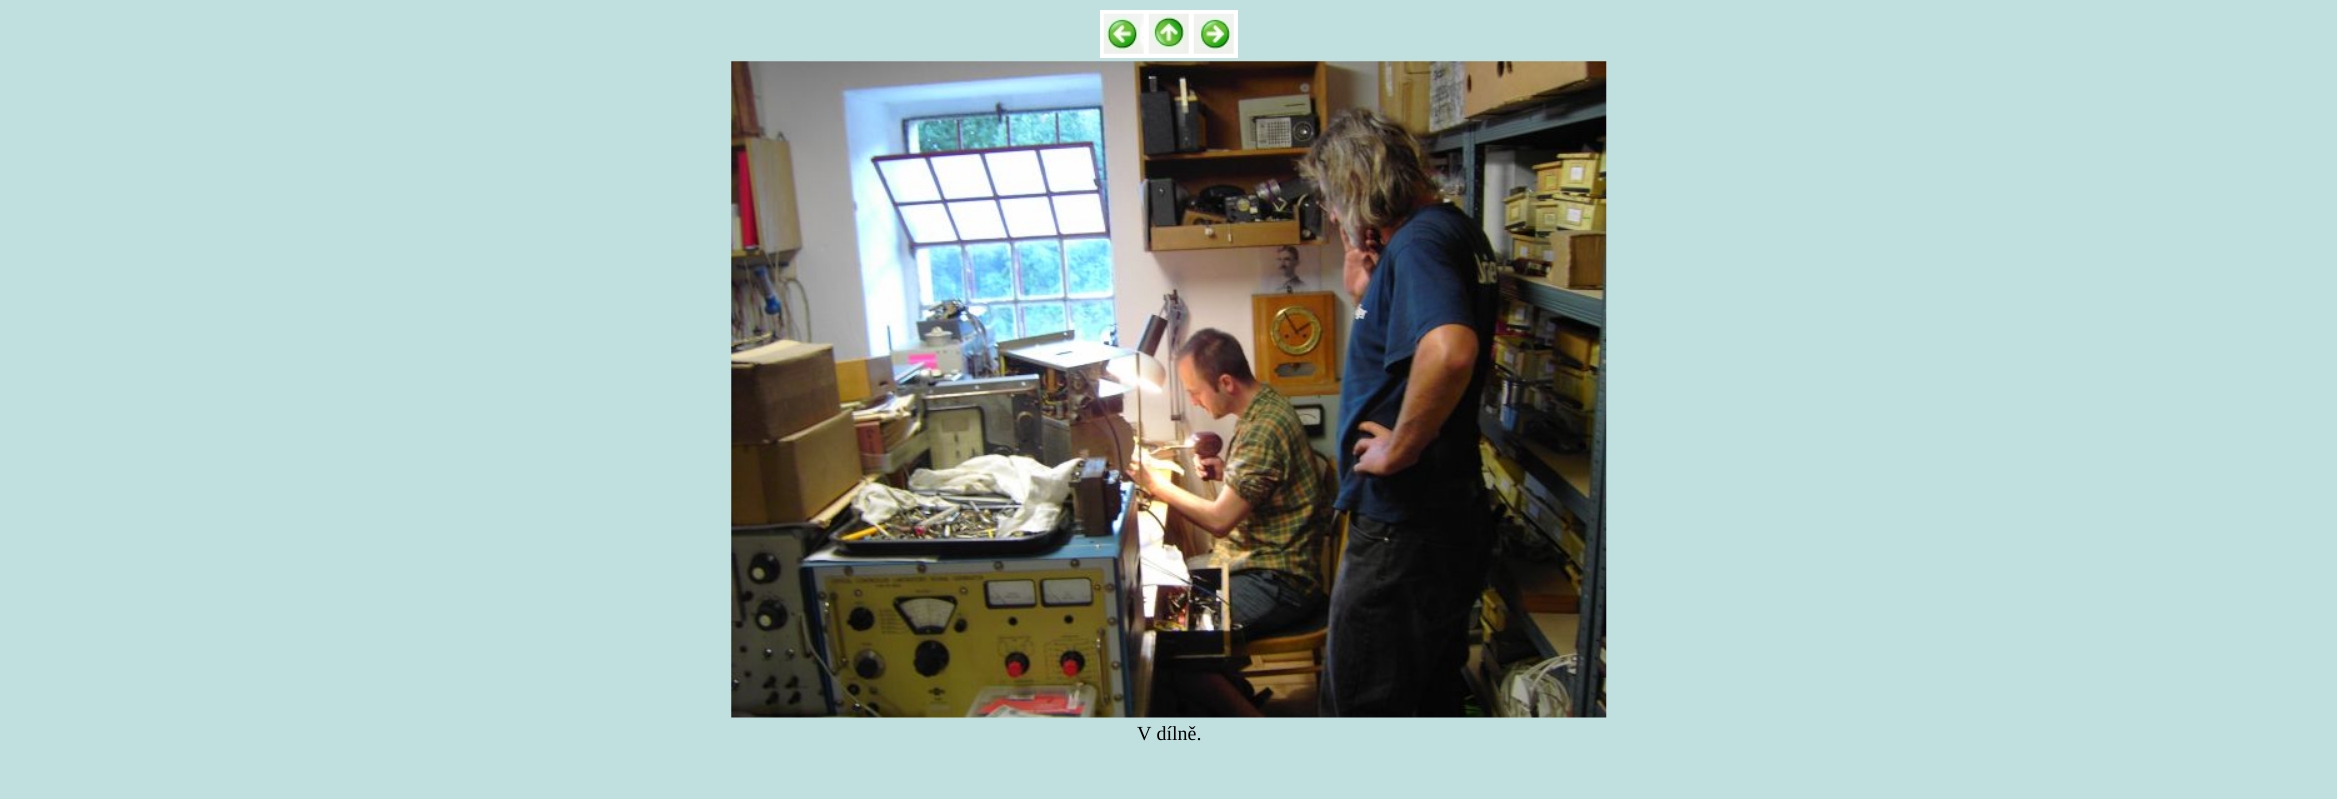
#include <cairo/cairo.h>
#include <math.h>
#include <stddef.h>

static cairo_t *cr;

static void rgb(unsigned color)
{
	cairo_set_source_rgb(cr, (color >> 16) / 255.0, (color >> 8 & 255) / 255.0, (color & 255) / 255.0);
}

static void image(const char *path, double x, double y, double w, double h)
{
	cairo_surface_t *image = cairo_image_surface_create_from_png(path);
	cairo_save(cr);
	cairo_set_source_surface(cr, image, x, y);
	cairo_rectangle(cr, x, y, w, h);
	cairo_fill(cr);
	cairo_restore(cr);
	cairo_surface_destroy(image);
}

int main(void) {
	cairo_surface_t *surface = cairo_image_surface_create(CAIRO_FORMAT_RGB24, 2337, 799);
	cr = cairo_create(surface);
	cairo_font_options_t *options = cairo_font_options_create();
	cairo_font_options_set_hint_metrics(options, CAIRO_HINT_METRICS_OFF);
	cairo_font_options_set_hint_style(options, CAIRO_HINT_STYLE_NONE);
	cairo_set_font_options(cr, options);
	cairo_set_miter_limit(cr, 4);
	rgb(0xc0e0e0);
	cairo_paint(cr);
	rgb(0xffffff);
	cairo_rectangle(cr, 1100, 10, 138, 48);
	cairo_fill(cr);
	image("img/1.png", 1103, 13, 41, 41);
	image("img/2.png", 1148, 13, 41, 41);
	image("img/3.png", 1193, 13, 41, 41);
	image("img/4.png", 731, 61, 876, 657);
	cairo_select_font_face(cr, "Liberation Serif", CAIRO_FONT_SLANT_NORMAL, CAIRO_FONT_WEIGHT_NORMAL);
	cairo_set_font_size(cr, 20);
	rgb(0x000000);
	cairo_move_to(cr, 1137, 740);
	cairo_show_text(cr, "V dílně.");
	cairo_surface_write_to_png(surface, "page.png");
	cairo_font_options_destroy(options);
	cairo_destroy(cr);
	cairo_surface_destroy(surface);
	return 0;
}
